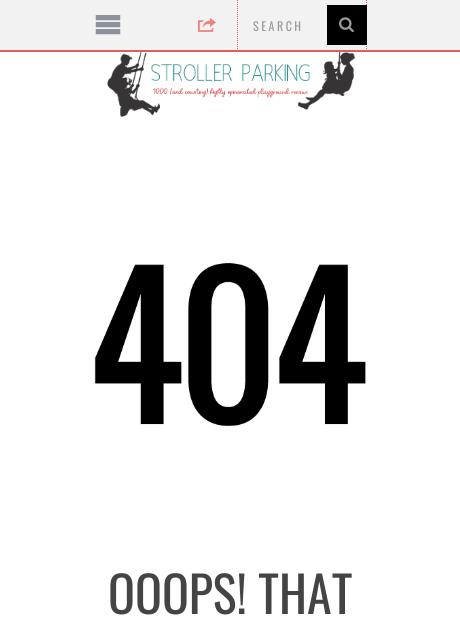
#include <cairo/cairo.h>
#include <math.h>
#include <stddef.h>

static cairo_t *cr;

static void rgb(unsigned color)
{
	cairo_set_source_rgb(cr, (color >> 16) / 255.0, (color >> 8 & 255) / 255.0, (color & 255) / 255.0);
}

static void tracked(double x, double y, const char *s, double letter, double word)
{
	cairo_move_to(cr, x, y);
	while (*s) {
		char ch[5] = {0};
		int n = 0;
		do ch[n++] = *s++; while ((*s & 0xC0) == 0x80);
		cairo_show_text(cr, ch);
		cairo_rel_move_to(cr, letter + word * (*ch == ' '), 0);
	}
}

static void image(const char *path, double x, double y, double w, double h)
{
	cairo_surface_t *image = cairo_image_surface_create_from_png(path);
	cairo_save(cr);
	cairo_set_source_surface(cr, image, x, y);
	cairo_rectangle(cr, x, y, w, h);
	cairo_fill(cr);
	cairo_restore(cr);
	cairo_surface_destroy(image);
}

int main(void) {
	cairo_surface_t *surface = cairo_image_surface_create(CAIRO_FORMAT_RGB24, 460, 619);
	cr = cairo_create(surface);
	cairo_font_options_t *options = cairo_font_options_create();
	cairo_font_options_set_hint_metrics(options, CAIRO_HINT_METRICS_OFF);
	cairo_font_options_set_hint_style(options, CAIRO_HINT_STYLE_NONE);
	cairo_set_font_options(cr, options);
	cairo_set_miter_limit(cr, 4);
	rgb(0xffffff);
	cairo_paint(cr);
	rgb(0xf2f2f2);
	cairo_rectangle(cr, 0, 0, 460, 50);
	cairo_fill(cr);
	rgb(0xdf5d5c);
	cairo_rectangle(cr, 0, 50, 460, 2);
	cairo_fill(cr);
	image("img/1.png", 95, 15, 26, 20);
	image("img/2.png", 198, 18, 18, 14);
	cairo_new_path(cr);
	cairo_move_to(cr, 366.5, 0);
	cairo_line_to(cr, 366.5, 50);
	cairo_set_line_width(cr, 1);
	cairo_set_dash(cr, (double[]){1, 1}, 2, 0);
	cairo_stroke(cr);
	cairo_new_path(cr);
	cairo_move_to(cr, 237.5, 0);
	cairo_line_to(cr, 237.5, 50);
	cairo_stroke(cr);
	rgb(0x000000);
	cairo_rectangle(cr, 327, 5, 40, 40);
	cairo_fill(cr);
	image("img/3.png", 339, 17, 15, 16);
	image("img/4.png", 107, 52, 249, 65);
	image("img/5.png", 94, 263, 272, 164);
	cairo_select_font_face(cr, "Oswald", CAIRO_FONT_SLANT_NORMAL, CAIRO_FONT_WEIGHT_NORMAL);
	cairo_set_font_size(cr, 12);
	rgb(0x9b9b9b);
	tracked(253, 31, "SEARCH", 2.5, 0);
	cairo_set_font_size(cr, 50);
	rgb(0x444444);
	cairo_move_to(cr, 108, 614);
	cairo_show_text(cr, "OOOPS! THAT");
	cairo_surface_write_to_png(surface, "page.png");
	cairo_font_options_destroy(options);
	cairo_destroy(cr);
	cairo_surface_destroy(surface);
	return 0;
}
